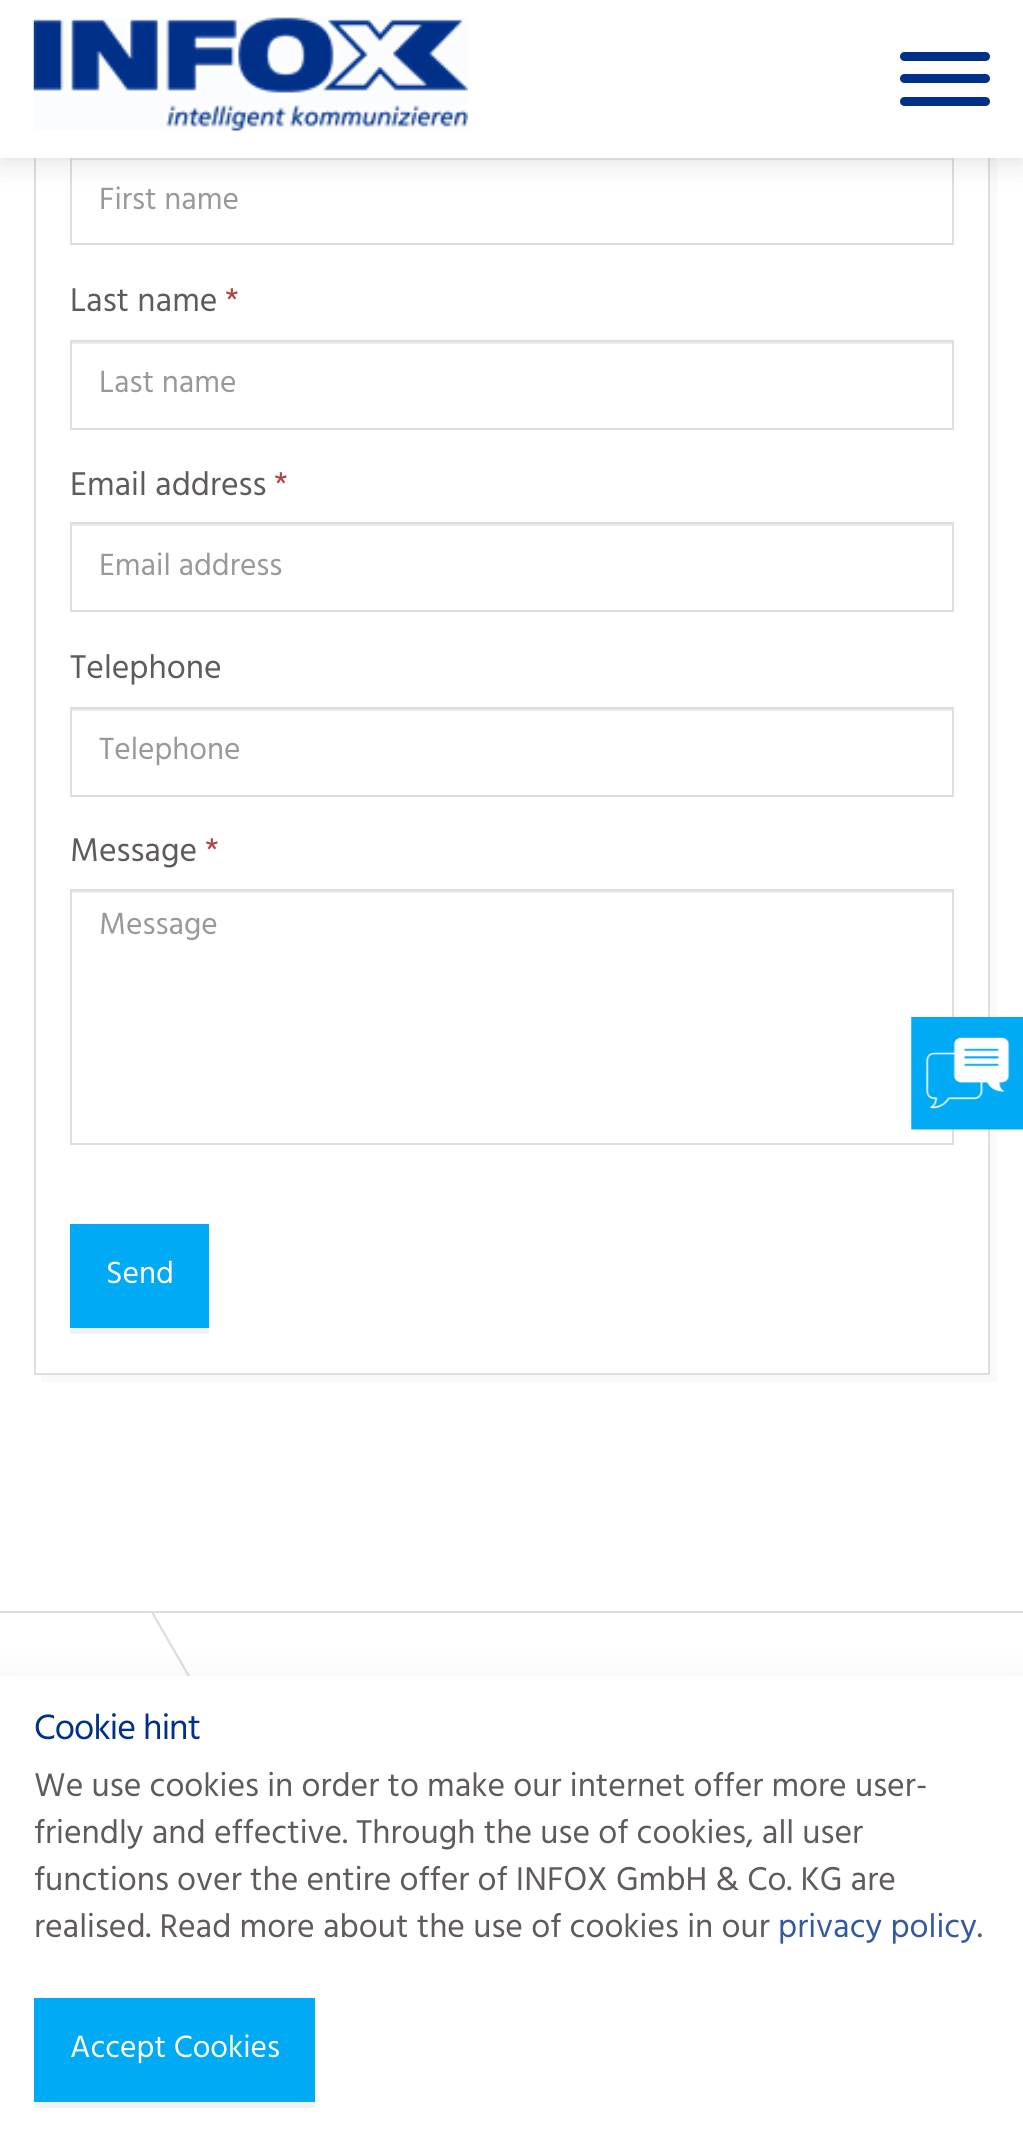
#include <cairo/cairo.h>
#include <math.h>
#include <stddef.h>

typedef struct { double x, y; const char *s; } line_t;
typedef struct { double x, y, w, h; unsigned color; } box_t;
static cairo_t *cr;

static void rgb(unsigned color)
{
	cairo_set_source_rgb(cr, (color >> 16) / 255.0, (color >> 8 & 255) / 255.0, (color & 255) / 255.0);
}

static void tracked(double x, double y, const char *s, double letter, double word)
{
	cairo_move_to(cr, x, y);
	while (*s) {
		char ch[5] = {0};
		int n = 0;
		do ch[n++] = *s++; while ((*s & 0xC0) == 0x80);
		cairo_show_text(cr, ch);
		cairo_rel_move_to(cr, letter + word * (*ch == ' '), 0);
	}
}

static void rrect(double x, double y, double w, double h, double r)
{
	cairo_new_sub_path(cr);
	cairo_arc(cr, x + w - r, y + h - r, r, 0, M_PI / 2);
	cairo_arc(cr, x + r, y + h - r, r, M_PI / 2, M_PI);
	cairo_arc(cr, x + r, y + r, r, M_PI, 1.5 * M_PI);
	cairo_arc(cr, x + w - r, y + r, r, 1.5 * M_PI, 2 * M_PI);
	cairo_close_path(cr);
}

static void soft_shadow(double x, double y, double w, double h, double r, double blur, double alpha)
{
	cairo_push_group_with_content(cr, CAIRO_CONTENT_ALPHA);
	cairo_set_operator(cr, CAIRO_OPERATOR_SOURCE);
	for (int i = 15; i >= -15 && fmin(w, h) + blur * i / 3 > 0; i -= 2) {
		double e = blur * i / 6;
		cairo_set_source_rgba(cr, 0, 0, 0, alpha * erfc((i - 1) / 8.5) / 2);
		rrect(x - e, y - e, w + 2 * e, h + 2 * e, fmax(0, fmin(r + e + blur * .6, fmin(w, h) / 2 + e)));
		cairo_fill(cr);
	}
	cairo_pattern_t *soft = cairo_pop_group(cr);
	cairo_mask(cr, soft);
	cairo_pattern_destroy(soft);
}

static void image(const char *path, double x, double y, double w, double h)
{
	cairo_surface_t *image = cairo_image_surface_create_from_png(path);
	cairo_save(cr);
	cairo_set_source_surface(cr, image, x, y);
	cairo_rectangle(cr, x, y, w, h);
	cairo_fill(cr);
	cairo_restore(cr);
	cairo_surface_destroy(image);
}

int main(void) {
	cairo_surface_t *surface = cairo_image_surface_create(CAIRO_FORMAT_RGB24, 1023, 2146);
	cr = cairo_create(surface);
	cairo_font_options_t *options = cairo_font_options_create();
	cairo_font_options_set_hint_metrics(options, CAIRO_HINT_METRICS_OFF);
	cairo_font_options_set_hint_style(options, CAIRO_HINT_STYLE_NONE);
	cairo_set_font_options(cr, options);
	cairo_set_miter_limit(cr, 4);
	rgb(0xffffff);
	cairo_paint(cr);
	rgb(0xf9f9f9);
	cairo_new_path(cr);
	cairo_move_to(cr, 41, 1375);
	cairo_line_to(cr, 41, 1382);
	cairo_line_to(cr, 997, 1382);
	cairo_line_to(cr, 997, 68);
	cairo_line_to(cr, 990, 68);
	cairo_line_to(cr, 990, 1375);
	cairo_close_path(cr);
	cairo_fill(cr);
	cairo_rectangle(cr, 35, 62, 954, 1312);
	rgb(0xdedede);
	cairo_stroke(cr);
	rgb(0xececec);
	cairo_rectangle(cr, 72, 158, 880, 2);
	cairo_fill(cr);
	cairo_rectangle(cr, 71, 156, 882, 88);
	rgb(0xdedede);
	cairo_stroke(cr);
	rgb(0x000000);
	soft_shadow(0, 0, 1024, 158, 0, 17, 0.15);
	rgb(0xffffff);
	cairo_rectangle(cr, 0, 0, 1023, 158);
	cairo_fill(cr);
	image("img/1.png", 33, 17, 435, 114);
	rgb(0x003087);
	rrect(900, 74, 90, 9, 4.5);
	cairo_fill(cr);
	rrect(900, 52, 90, 9, 4.5);
	cairo_fill(cr);
	rrect(900, 97, 90, 9, 4.5);
	cairo_fill(cr);
	rgb(0xececec);
	cairo_rectangle(cr, 72, 342, 880, 2);
	cairo_fill(cr);
	cairo_rectangle(cr, 71, 341, 882, 88);
	rgb(0xdedede);
	cairo_stroke(cr);
	rgb(0xececec);
	cairo_rectangle(cr, 72, 524, 880, 2);
	cairo_fill(cr);
	cairo_rectangle(cr, 71, 523, 882, 88);
	rgb(0xdedede);
	cairo_stroke(cr);
	rgb(0xececec);
	cairo_rectangle(cr, 72, 709, 880, 2);
	cairo_fill(cr);
	cairo_rectangle(cr, 71, 708, 882, 88);
	rgb(0xdedede);
	cairo_stroke(cr);
	rgb(0xececec);
	cairo_rectangle(cr, 72, 891, 880, 2);
	cairo_fill(cr);
	cairo_rectangle(cr, 71, 890, 882, 254);
	rgb(0xdedede);
	cairo_stroke(cr);
	rgb(0xf2f2f2);
	cairo_rectangle(cr, 70, 1328, 139, 6);
	cairo_fill(cr);
	rgb(0x00aaf5);
	cairo_rectangle(cr, 70, 1224, 139, 104);
	cairo_fill(cr);
	image("img/2.png", 911, 1017, 112, 113);
	rgb(0xdedede);
	cairo_rectangle(cr, 0, 1611, 1023, 2);
	cairo_fill(cr);
	cairo_save(cr);
	cairo_rectangle(cr, 0, 1613, 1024, 133);
	cairo_clip(cr);
	cairo_new_path(cr);
	cairo_move_to(cr, 146, 1604);
	cairo_line_to(cr, 148, 1603);
	cairo_line_to(cr, 193, 1681);
	cairo_line_to(cr, 191, 1682);
	cairo_close_path(cr);
	cairo_fill(cr);
	cairo_restore(cr);
	rgb(0x000000);
	soft_shadow(0, 1676, 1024, 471, 0, 17, 0.05);
	{
		static const box_t items[] = {
			{0, 1676, 1023, 470, 0xffffff},
			{34, 2102, 281, 6, 0xf2f2f2},
			{34, 1998, 281, 104, 0x00aaf5},
		};
		for (size_t i = 0; i < sizeof items / sizeof *items; i++) {
			rgb(items[i].color);
			cairo_rectangle(cr, items[i].x, items[i].y, items[i].w, items[i].h);
			cairo_fill(cr);
		}
	}
	cairo_select_font_face(cr, "Hind", CAIRO_FONT_SLANT_NORMAL, CAIRO_FONT_WEIGHT_NORMAL);
	cairo_set_font_size(cr, 31.5);
	rgb(0x999999);
	cairo_move_to(cr, 99, 209);
	cairo_show_text(cr, "First name");
	cairo_set_font_size(cr, 33.75);
	rgb(0x5e5a5d);
	cairo_move_to(cr, 70, 311);
	cairo_show_text(cr, "Last name");
	rgb(0xa94442);
	cairo_move_to(cr, 225, 311);
	cairo_show_text(cr, "*");
	cairo_set_font_size(cr, 31.5);
	rgb(0x999999);
	cairo_move_to(cr, 99, 392);
	cairo_show_text(cr, "Last name");
	cairo_set_font_size(cr, 33.75);
	rgb(0x5e5a5d);
	cairo_move_to(cr, 70, 495);
	cairo_show_text(cr, "Email address");
	rgb(0xa94442);
	cairo_move_to(cr, 274, 495);
	cairo_show_text(cr, "*");
	cairo_set_font_size(cr, 31.5);
	rgb(0x999999);
	cairo_move_to(cr, 99, 575);
	cairo_show_text(cr, "Email address");
	cairo_set_font_size(cr, 33.75);
	rgb(0x5e5a5d);
	cairo_move_to(cr, 70, 678);
	cairo_show_text(cr, "Telephone");
	cairo_set_font_size(cr, 31.5);
	rgb(0x999999);
	cairo_move_to(cr, 99, 759);
	cairo_show_text(cr, "Telephone");
	cairo_set_font_size(cr, 33.75);
	rgb(0x5e5a5d);
	cairo_move_to(cr, 70, 861);
	cairo_show_text(cr, "Message");
	rgb(0xa94442);
	cairo_move_to(cr, 205, 861);
	cairo_show_text(cr, "*");
	cairo_set_font_size(cr, 31.5);
	rgb(0x999999);
	cairo_move_to(cr, 99, 934);
	cairo_show_text(cr, "Message");
	rgb(0xffffff);
	cairo_move_to(cr, 106, 1283);
	cairo_show_text(cr, "Send");
	cairo_set_font_size(cr, 36);
	rgb(0x003087);
	tracked(34, 1739, "Cookie hint", -0.9, 0);
	cairo_set_font_size(cr, 33.75);
	rgb(0x5e5a5d);
	{
		static const line_t items[] = {
			{34, 1796, "We use cookies in order to make our internet offer more user-"},
			{34, 1843, "friendly and effective. Through the use of cookies, all user"},
			{34, 1890, "functions over the entire offer of INFOX GmbH & Co. KG are"},
			{34, 1937, "realised. Read more about the use of cookies in our"},
		};
		for (size_t i = 0; i < sizeof items / sizeof *items; i++) {
			cairo_move_to(cr, items[i].x, items[i].y);
			cairo_show_text(cr, items[i].s);
		}
	}
	rgb(0x33599f);
	cairo_move_to(cr, 778, 1937);
	cairo_show_text(cr, "privacy policy");
	rgb(0x5e5a5d);
	cairo_move_to(cr, 977, 1937);
	cairo_show_text(cr, ".");
	cairo_set_font_size(cr, 31.5);
	rgb(0xffffff);
	cairo_move_to(cr, 70, 2057);
	cairo_show_text(cr, "Accept Cookies");
	cairo_surface_write_to_png(surface, "page.png");
	cairo_font_options_destroy(options);
	cairo_destroy(cr);
	cairo_surface_destroy(surface);
	return 0;
}
